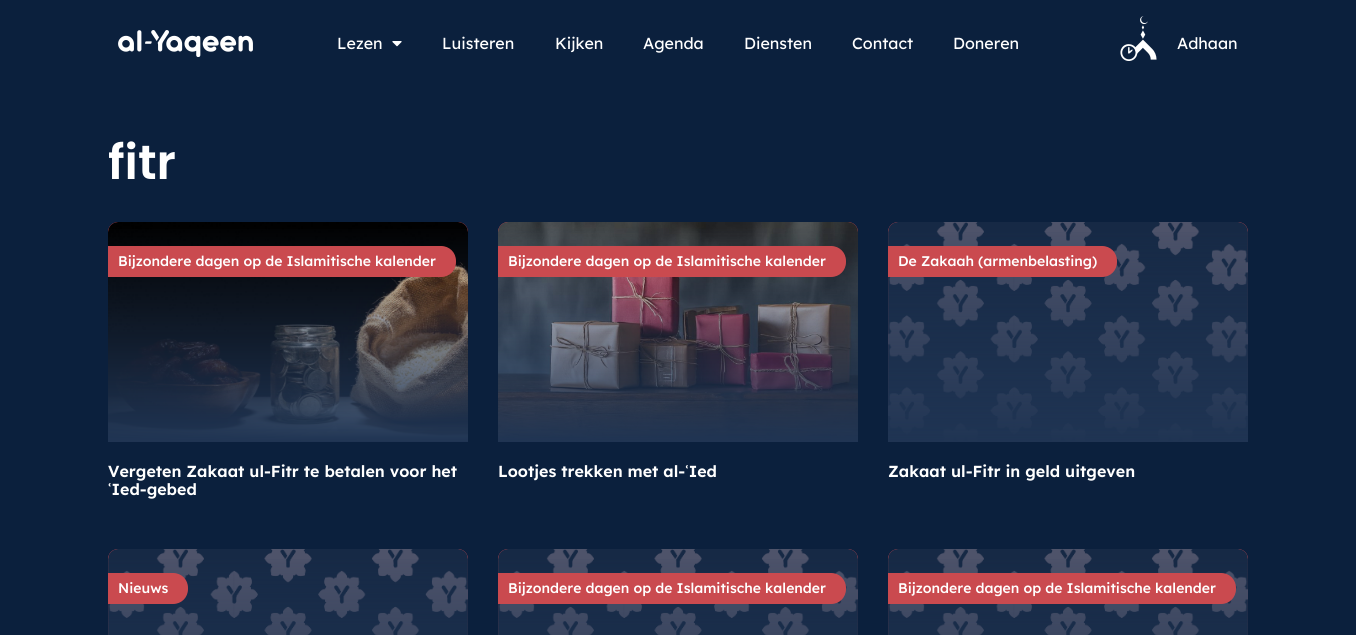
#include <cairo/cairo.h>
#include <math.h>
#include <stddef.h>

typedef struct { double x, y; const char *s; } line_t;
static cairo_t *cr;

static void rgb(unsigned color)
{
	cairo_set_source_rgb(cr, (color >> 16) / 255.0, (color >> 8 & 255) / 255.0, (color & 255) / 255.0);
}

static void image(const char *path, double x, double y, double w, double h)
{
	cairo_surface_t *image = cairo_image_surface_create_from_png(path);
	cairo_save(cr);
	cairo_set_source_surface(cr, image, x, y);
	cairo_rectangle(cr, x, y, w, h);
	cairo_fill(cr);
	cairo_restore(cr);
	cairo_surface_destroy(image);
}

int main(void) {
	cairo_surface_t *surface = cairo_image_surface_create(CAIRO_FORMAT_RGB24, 1356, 635);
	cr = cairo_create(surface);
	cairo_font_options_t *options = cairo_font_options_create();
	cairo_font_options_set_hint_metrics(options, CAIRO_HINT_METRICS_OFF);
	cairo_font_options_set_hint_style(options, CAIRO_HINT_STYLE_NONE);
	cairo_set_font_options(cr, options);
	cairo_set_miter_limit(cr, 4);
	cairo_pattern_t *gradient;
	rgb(0x0b203d);
	cairo_paint(cr);
	image("img/1.png", 118, 30, 135, 27);
	image("img/2.png", 392, 41, 10, 6);
	image("img/3.png", 1120, 16, 37, 45);
	rgb(0xca4a4f);
	cairo_new_path(cr);
	cairo_move_to(cr, 118, 222);
	cairo_line_to(cr, 458, 222);
	cairo_curve_to(cr, 463.5, 222, 468, 226.5, 468, 232);
	cairo_line_to(cr, 468, 442);
	cairo_line_to(cr, 108, 442);
	cairo_line_to(cr, 108, 232);
	cairo_curve_to(cr, 108, 226.5, 112.5, 222, 118, 222);
	cairo_close_path(cr);
	cairo_fill(cr);
	image("img/4.png", 108, 222, 360, 219);
	gradient = cairo_pattern_create_linear(288, 442, 288, 222);
	cairo_pattern_add_color_stop_rgba(gradient, 0, 0.122, 0.204, 0.325, 1);
	cairo_pattern_add_color_stop_rgba(gradient, 1, 0.122, 0.204, 0.325, 0);
	cairo_set_source(cr, gradient);
	cairo_pattern_destroy(gradient);
	cairo_rectangle(cr, 108, 229, 360, 213);
	cairo_fill(cr);
	rgb(0xca4a4f);
	cairo_new_path(cr);
	cairo_move_to(cr, 108, 246);
	cairo_line_to(cr, 441, 246);
	cairo_curve_to(cr, 449.5, 246, 456, 252.5, 456, 261);
	cairo_line_to(cr, 456, 262);
	cairo_curve_to(cr, 456, 270.5, 449.5, 277, 441, 277);
	cairo_line_to(cr, 108, 277);
	cairo_close_path(cr);
	cairo_fill(cr);
	cairo_new_path(cr);
	cairo_move_to(cr, 508, 222);
	cairo_line_to(cr, 848, 222);
	cairo_curve_to(cr, 853.5, 222, 858, 226.5, 858, 232);
	cairo_line_to(cr, 858, 442);
	cairo_line_to(cr, 498, 442);
	cairo_line_to(cr, 498, 232);
	cairo_curve_to(cr, 498, 226.5, 502.5, 222, 508, 222);
	cairo_close_path(cr);
	cairo_fill(cr);
	image("img/5.png", 498, 222, 360, 219);
	gradient = cairo_pattern_create_linear(678, 442, 678, 222);
	cairo_pattern_add_color_stop_rgba(gradient, 0, 0.122, 0.204, 0.325, 1);
	cairo_pattern_add_color_stop_rgba(gradient, 1, 0.122, 0.204, 0.325, 0);
	cairo_set_source(cr, gradient);
	cairo_pattern_destroy(gradient);
	cairo_rectangle(cr, 498, 229, 360, 213);
	cairo_fill(cr);
	rgb(0xca4a4f);
	cairo_new_path(cr);
	cairo_move_to(cr, 498, 246);
	cairo_line_to(cr, 831, 246);
	cairo_curve_to(cr, 839.5, 246, 846, 252.5, 846, 261);
	cairo_line_to(cr, 846, 262);
	cairo_curve_to(cr, 846, 270.5, 839.5, 277, 831, 277);
	cairo_line_to(cr, 498, 277);
	cairo_close_path(cr);
	cairo_fill(cr);
	cairo_new_path(cr);
	cairo_move_to(cr, 898, 222);
	cairo_line_to(cr, 1238, 222);
	cairo_curve_to(cr, 1243.5, 222, 1248, 226.5, 1248, 232);
	cairo_line_to(cr, 1248, 442);
	cairo_line_to(cr, 888, 442);
	cairo_line_to(cr, 888, 232);
	cairo_curve_to(cr, 888, 226.5, 892.5, 222, 898, 222);
	cairo_close_path(cr);
	cairo_fill(cr);
	image("img/6.png", 888, 222, 360, 219);
	gradient = cairo_pattern_create_linear(1068, 442, 1068, 222);
	cairo_pattern_add_color_stop_rgba(gradient, 0, 0.122, 0.204, 0.325, 1);
	cairo_pattern_add_color_stop_rgba(gradient, 1, 0.122, 0.204, 0.325, 0);
	cairo_set_source(cr, gradient);
	cairo_pattern_destroy(gradient);
	cairo_rectangle(cr, 888, 232, 360, 210);
	cairo_fill(cr);
	rgb(0xca4a4f);
	cairo_new_path(cr);
	cairo_move_to(cr, 888, 246);
	cairo_line_to(cr, 1102, 246);
	cairo_curve_to(cr, 1110.5, 246, 1117, 252.5, 1117, 261);
	cairo_line_to(cr, 1117, 262);
	cairo_curve_to(cr, 1117, 270.5, 1110.5, 277, 1102, 277);
	cairo_line_to(cr, 888, 277);
	cairo_close_path(cr);
	cairo_fill(cr);
	cairo_new_path(cr);
	cairo_move_to(cr, 118, 549);
	cairo_line_to(cr, 458, 549);
	cairo_curve_to(cr, 463.5, 549, 468, 553.5, 468, 559);
	cairo_line_to(cr, 468, 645);
	cairo_line_to(cr, 108, 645);
	cairo_line_to(cr, 108, 559);
	cairo_curve_to(cr, 108, 553.5, 112.5, 549, 118, 549);
	cairo_close_path(cr);
	cairo_fill(cr);
	image("img/7.png", 108, 549, 360, 86);
	gradient = cairo_pattern_create_linear(288, 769, 288, 549);
	cairo_pattern_add_color_stop_rgba(gradient, 0, 0.122, 0.204, 0.325, 1);
	cairo_pattern_add_color_stop_rgba(gradient, 1, 0.122, 0.204, 0.325, 0);
	cairo_set_source(cr, gradient);
	cairo_pattern_destroy(gradient);
	cairo_rectangle(cr, 108, 559, 360, 76);
	cairo_fill(cr);
	rgb(0xca4a4f);
	cairo_new_path(cr);
	cairo_move_to(cr, 108, 573);
	cairo_line_to(cr, 173, 573);
	cairo_curve_to(cr, 181.5, 573, 188, 579.5, 188, 588);
	cairo_line_to(cr, 188, 589);
	cairo_curve_to(cr, 188, 597.5, 181.5, 604, 173, 604);
	cairo_line_to(cr, 108, 604);
	cairo_close_path(cr);
	cairo_fill(cr);
	cairo_new_path(cr);
	cairo_move_to(cr, 508, 549);
	cairo_line_to(cr, 848, 549);
	cairo_curve_to(cr, 853.5, 549, 858, 553.5, 858, 559);
	cairo_line_to(cr, 858, 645);
	cairo_line_to(cr, 498, 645);
	cairo_line_to(cr, 498, 559);
	cairo_curve_to(cr, 498, 553.5, 502.5, 549, 508, 549);
	cairo_close_path(cr);
	cairo_fill(cr);
	image("img/7.png", 498, 549, 360, 86);
	gradient = cairo_pattern_create_linear(678, 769, 678, 549);
	cairo_pattern_add_color_stop_rgba(gradient, 0, 0.122, 0.204, 0.325, 1);
	cairo_pattern_add_color_stop_rgba(gradient, 1, 0.122, 0.204, 0.325, 0);
	cairo_set_source(cr, gradient);
	cairo_pattern_destroy(gradient);
	cairo_rectangle(cr, 498, 559, 360, 76);
	cairo_fill(cr);
	rgb(0xca4a4f);
	cairo_new_path(cr);
	cairo_move_to(cr, 498, 573);
	cairo_line_to(cr, 831, 573);
	cairo_curve_to(cr, 839.5, 573, 846, 579.5, 846, 588);
	cairo_line_to(cr, 846, 589);
	cairo_curve_to(cr, 846, 597.5, 839.5, 604, 831, 604);
	cairo_line_to(cr, 498, 604);
	cairo_close_path(cr);
	cairo_fill(cr);
	cairo_new_path(cr);
	cairo_move_to(cr, 898, 549);
	cairo_line_to(cr, 1238, 549);
	cairo_curve_to(cr, 1243.5, 549, 1248, 553.5, 1248, 559);
	cairo_line_to(cr, 1248, 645);
	cairo_line_to(cr, 888, 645);
	cairo_line_to(cr, 888, 559);
	cairo_curve_to(cr, 888, 553.5, 892.5, 549, 898, 549);
	cairo_close_path(cr);
	cairo_fill(cr);
	image("img/8.png", 888, 549, 360, 86);
	gradient = cairo_pattern_create_linear(1068, 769, 1068, 549);
	cairo_pattern_add_color_stop_rgba(gradient, 0, 0.122, 0.204, 0.325, 1);
	cairo_pattern_add_color_stop_rgba(gradient, 1, 0.122, 0.204, 0.325, 0);
	cairo_set_source(cr, gradient);
	cairo_pattern_destroy(gradient);
	cairo_rectangle(cr, 888, 559, 360, 76);
	cairo_fill(cr);
	rgb(0xca4a4f);
	cairo_new_path(cr);
	cairo_move_to(cr, 888, 573);
	cairo_line_to(cr, 1221, 573);
	cairo_curve_to(cr, 1229.5, 573, 1236, 579.5, 1236, 588);
	cairo_line_to(cr, 1236, 589);
	cairo_curve_to(cr, 1236, 597.5, 1229.5, 604, 1221, 604);
	cairo_line_to(cr, 888, 604);
	cairo_close_path(cr);
	cairo_fill(cr);
	cairo_select_font_face(cr, "Lexend Deca", CAIRO_FONT_SLANT_NORMAL, CAIRO_FONT_WEIGHT_NORMAL);
	cairo_set_font_size(cr, 16);
	rgb(0xffffff);
	{
		static const line_t items[] = {
			{337, 49, "Lezen"},
			{442, 49, "Luisteren"},
			{555, 49, "Kijken"},
			{643, 49, "Agenda"},
			{744, 49, "Diensten"},
			{852, 49, "Contact"},
			{953, 49, "Doneren"},
			{1177, 49, "Adhaan"},
		};
		for (size_t i = 0; i < sizeof items / sizeof *items; i++) {
			cairo_move_to(cr, items[i].x, items[i].y);
			cairo_show_text(cr, items[i].s);
		}
	}
	cairo_select_font_face(cr, "Poppins SemiBold", CAIRO_FONT_SLANT_NORMAL, CAIRO_FONT_WEIGHT_NORMAL);
	cairo_set_font_size(cr, 48);
	cairo_move_to(cr, 108, 179);
	cairo_show_text(cr, "fitr");
	cairo_select_font_face(cr, "Lexend Deca Medium", CAIRO_FONT_SLANT_NORMAL, CAIRO_FONT_WEIGHT_NORMAL);
	cairo_set_font_size(cr, 14);
	cairo_move_to(cr, 118, 266);
	cairo_show_text(cr, "Bijzondere dagen op de Islamitische kalender");
	cairo_select_font_face(cr, "Lexend Deca SemiBold", CAIRO_FONT_SLANT_NORMAL, CAIRO_FONT_WEIGHT_NORMAL);
	cairo_set_font_size(cr, 16);
	cairo_move_to(cr, 108, 477);
	cairo_show_text(cr, "Vergeten Zakaat ul-Fitr te betalen voor het");
	cairo_move_to(cr, 108, 495);
	cairo_show_text(cr, "ʿIed-gebed");
	cairo_select_font_face(cr, "Lexend Deca Medium", CAIRO_FONT_SLANT_NORMAL, CAIRO_FONT_WEIGHT_NORMAL);
	cairo_set_font_size(cr, 14);
	cairo_move_to(cr, 508, 266);
	cairo_show_text(cr, "Bijzondere dagen op de Islamitische kalender");
	cairo_select_font_face(cr, "Lexend Deca SemiBold", CAIRO_FONT_SLANT_NORMAL, CAIRO_FONT_WEIGHT_NORMAL);
	cairo_set_font_size(cr, 16);
	cairo_move_to(cr, 498, 477);
	cairo_show_text(cr, "Lootjes trekken met al-ʿIed");
	cairo_select_font_face(cr, "Lexend Deca Medium", CAIRO_FONT_SLANT_NORMAL, CAIRO_FONT_WEIGHT_NORMAL);
	cairo_set_font_size(cr, 14);
	cairo_move_to(cr, 898, 266);
	cairo_show_text(cr, "De Zakaah (armenbelasting)");
	cairo_select_font_face(cr, "Lexend Deca SemiBold", CAIRO_FONT_SLANT_NORMAL, CAIRO_FONT_WEIGHT_NORMAL);
	cairo_set_font_size(cr, 16);
	cairo_move_to(cr, 888, 477);
	cairo_show_text(cr, "Zakaat ul-Fitr in geld uitgeven");
	cairo_select_font_face(cr, "Lexend Deca Medium", CAIRO_FONT_SLANT_NORMAL, CAIRO_FONT_WEIGHT_NORMAL);
	cairo_set_font_size(cr, 14);
	{
		static const line_t items[] = {
			{118, 593, "Nieuws"},
			{508, 593, "Bijzondere dagen op de Islamitische kalender"},
			{898, 593, "Bijzondere dagen op de Islamitische kalender"},
		};
		for (size_t i = 0; i < sizeof items / sizeof *items; i++) {
			cairo_move_to(cr, items[i].x, items[i].y);
			cairo_show_text(cr, items[i].s);
		}
	}
	cairo_surface_write_to_png(surface, "page.png");
	cairo_font_options_destroy(options);
	cairo_destroy(cr);
	cairo_surface_destroy(surface);
	return 0;
}
